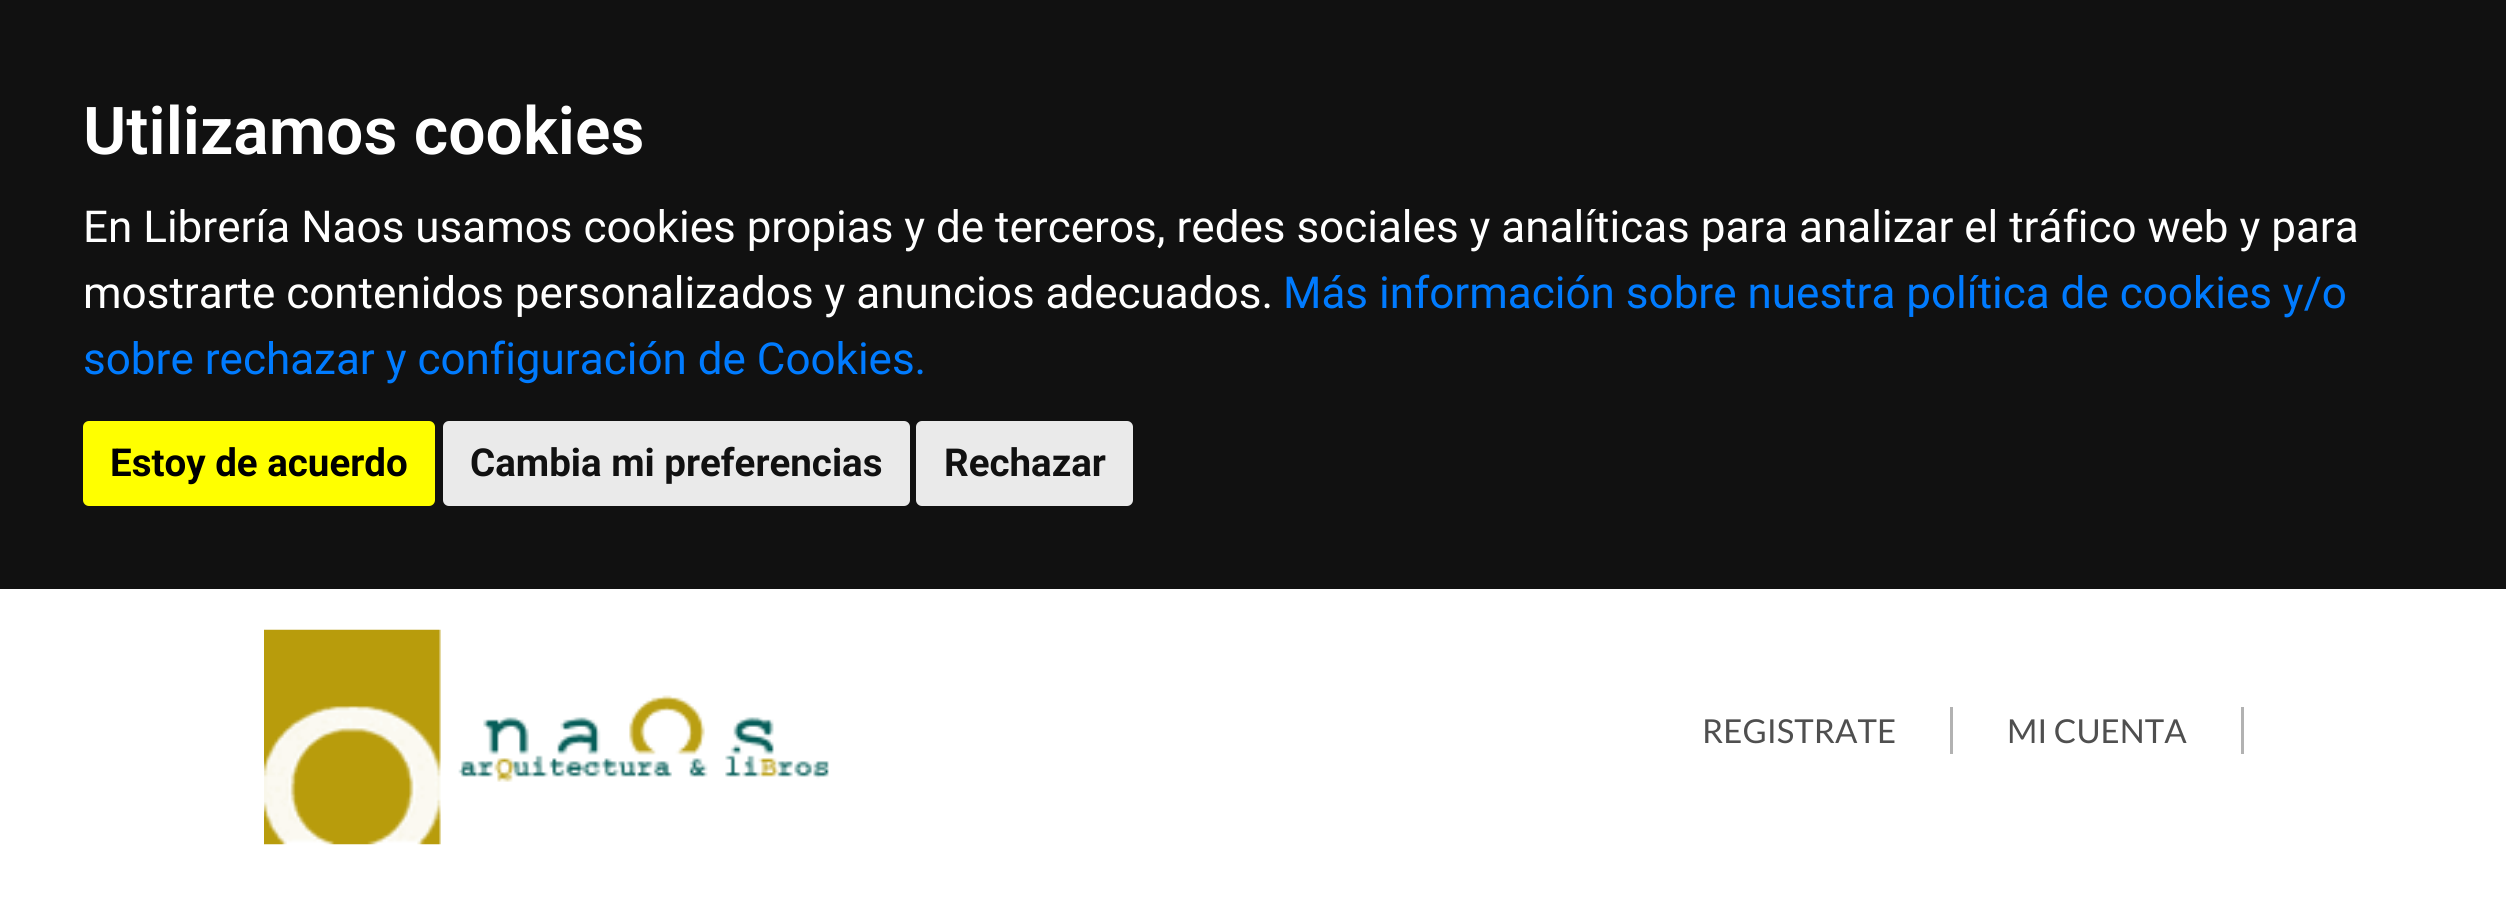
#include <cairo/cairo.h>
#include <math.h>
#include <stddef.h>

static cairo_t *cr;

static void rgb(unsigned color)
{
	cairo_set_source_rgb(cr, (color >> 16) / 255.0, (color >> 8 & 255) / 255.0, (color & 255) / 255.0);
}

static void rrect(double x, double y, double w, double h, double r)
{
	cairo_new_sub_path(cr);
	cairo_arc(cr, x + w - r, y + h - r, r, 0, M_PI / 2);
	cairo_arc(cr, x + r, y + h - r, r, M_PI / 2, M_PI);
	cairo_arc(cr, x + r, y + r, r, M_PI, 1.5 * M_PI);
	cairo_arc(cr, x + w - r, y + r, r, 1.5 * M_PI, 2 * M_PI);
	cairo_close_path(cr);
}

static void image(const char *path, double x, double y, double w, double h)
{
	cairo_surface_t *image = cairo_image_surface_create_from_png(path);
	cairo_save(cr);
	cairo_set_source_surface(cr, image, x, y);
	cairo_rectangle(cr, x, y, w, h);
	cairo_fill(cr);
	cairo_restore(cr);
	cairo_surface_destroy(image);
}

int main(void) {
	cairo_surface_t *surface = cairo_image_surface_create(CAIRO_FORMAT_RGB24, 2506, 917);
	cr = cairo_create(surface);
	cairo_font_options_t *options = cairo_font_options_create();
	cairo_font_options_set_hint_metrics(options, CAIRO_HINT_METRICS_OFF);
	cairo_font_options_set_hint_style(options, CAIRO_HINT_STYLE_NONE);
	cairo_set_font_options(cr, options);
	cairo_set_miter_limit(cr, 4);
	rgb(0xffffff);
	cairo_paint(cr);
	rgb(0x111111);
	cairo_rectangle(cr, 0, 0, 2506, 589);
	cairo_fill(cr);
	rgb(0xffff00);
	rrect(83, 421, 352, 85, 6);
	cairo_fill(cr);
	rgb(0xeaeaea);
	rrect(443, 421, 467, 85, 6);
	cairo_fill(cr);
	rrect(916, 421, 217, 85, 6);
	cairo_fill(cr);
	image("img/1.png", 264, 629, 565, 216);
	rgb(0xb2b2b2);
	cairo_rectangle(cr, 1950, 707, 3, 47);
	cairo_fill(cr);
	cairo_rectangle(cr, 2241, 707, 3, 47);
	cairo_fill(cr);
	cairo_select_font_face(cr, "Roboto SemiBold", CAIRO_FONT_SLANT_NORMAL, CAIRO_FONT_WEIGHT_NORMAL);
	cairo_set_font_size(cr, 66);
	rgb(0xffffff);
	cairo_move_to(cr, 83, 154);
	cairo_show_text(cr, "Utilizamos cookies");
	cairo_select_font_face(cr, "Roboto", CAIRO_FONT_SLANT_NORMAL, CAIRO_FONT_WEIGHT_NORMAL);
	cairo_set_font_size(cr, 44);
	cairo_move_to(cr, 83, 242);
	cairo_show_text(cr, "En Librería Naos usamos cookies propias y de terceros, redes sociales y analíticas para analizar el tráfico web y para");
	cairo_move_to(cr, 83, 308);
	cairo_show_text(cr, "mostrarte contenidos personalizados y anuncios adecuados.");
	rgb(0x007bff);
	cairo_move_to(cr, 1283, 308);
	cairo_show_text(cr, "Más información sobre nuestra política de cookies y/o");
	cairo_move_to(cr, 83, 374);
	cairo_show_text(cr, "sobre rechazar y configuración de Cookies.");
	cairo_select_font_face(cr, "Roboto", CAIRO_FONT_SLANT_NORMAL, CAIRO_FONT_WEIGHT_BOLD);
	cairo_set_font_size(cr, 38.5);
	rgb(0x000000);
	cairo_move_to(cr, 110, 476);
	cairo_show_text(cr, "Estoy de acuerdo");
	rgb(0x111111);
	cairo_move_to(cr, 470, 476);
	cairo_show_text(cr, "Cambia mi preferencias");
	cairo_move_to(cr, 944, 476);
	cairo_show_text(cr, "Rechazar");
	cairo_select_font_face(cr, "Lato", CAIRO_FONT_SLANT_NORMAL, CAIRO_FONT_WEIGHT_NORMAL);
	cairo_set_font_size(cr, 33);
	rgb(0x4f4f4f);
	cairo_move_to(cr, 1702, 743);
	cairo_show_text(cr, "REGISTRATE");
	cairo_move_to(cr, 2007, 743);
	cairo_show_text(cr, "MI CUENTA");
	cairo_surface_write_to_png(surface, "page.png");
	cairo_font_options_destroy(options);
	cairo_destroy(cr);
	cairo_surface_destroy(surface);
	return 0;
}
